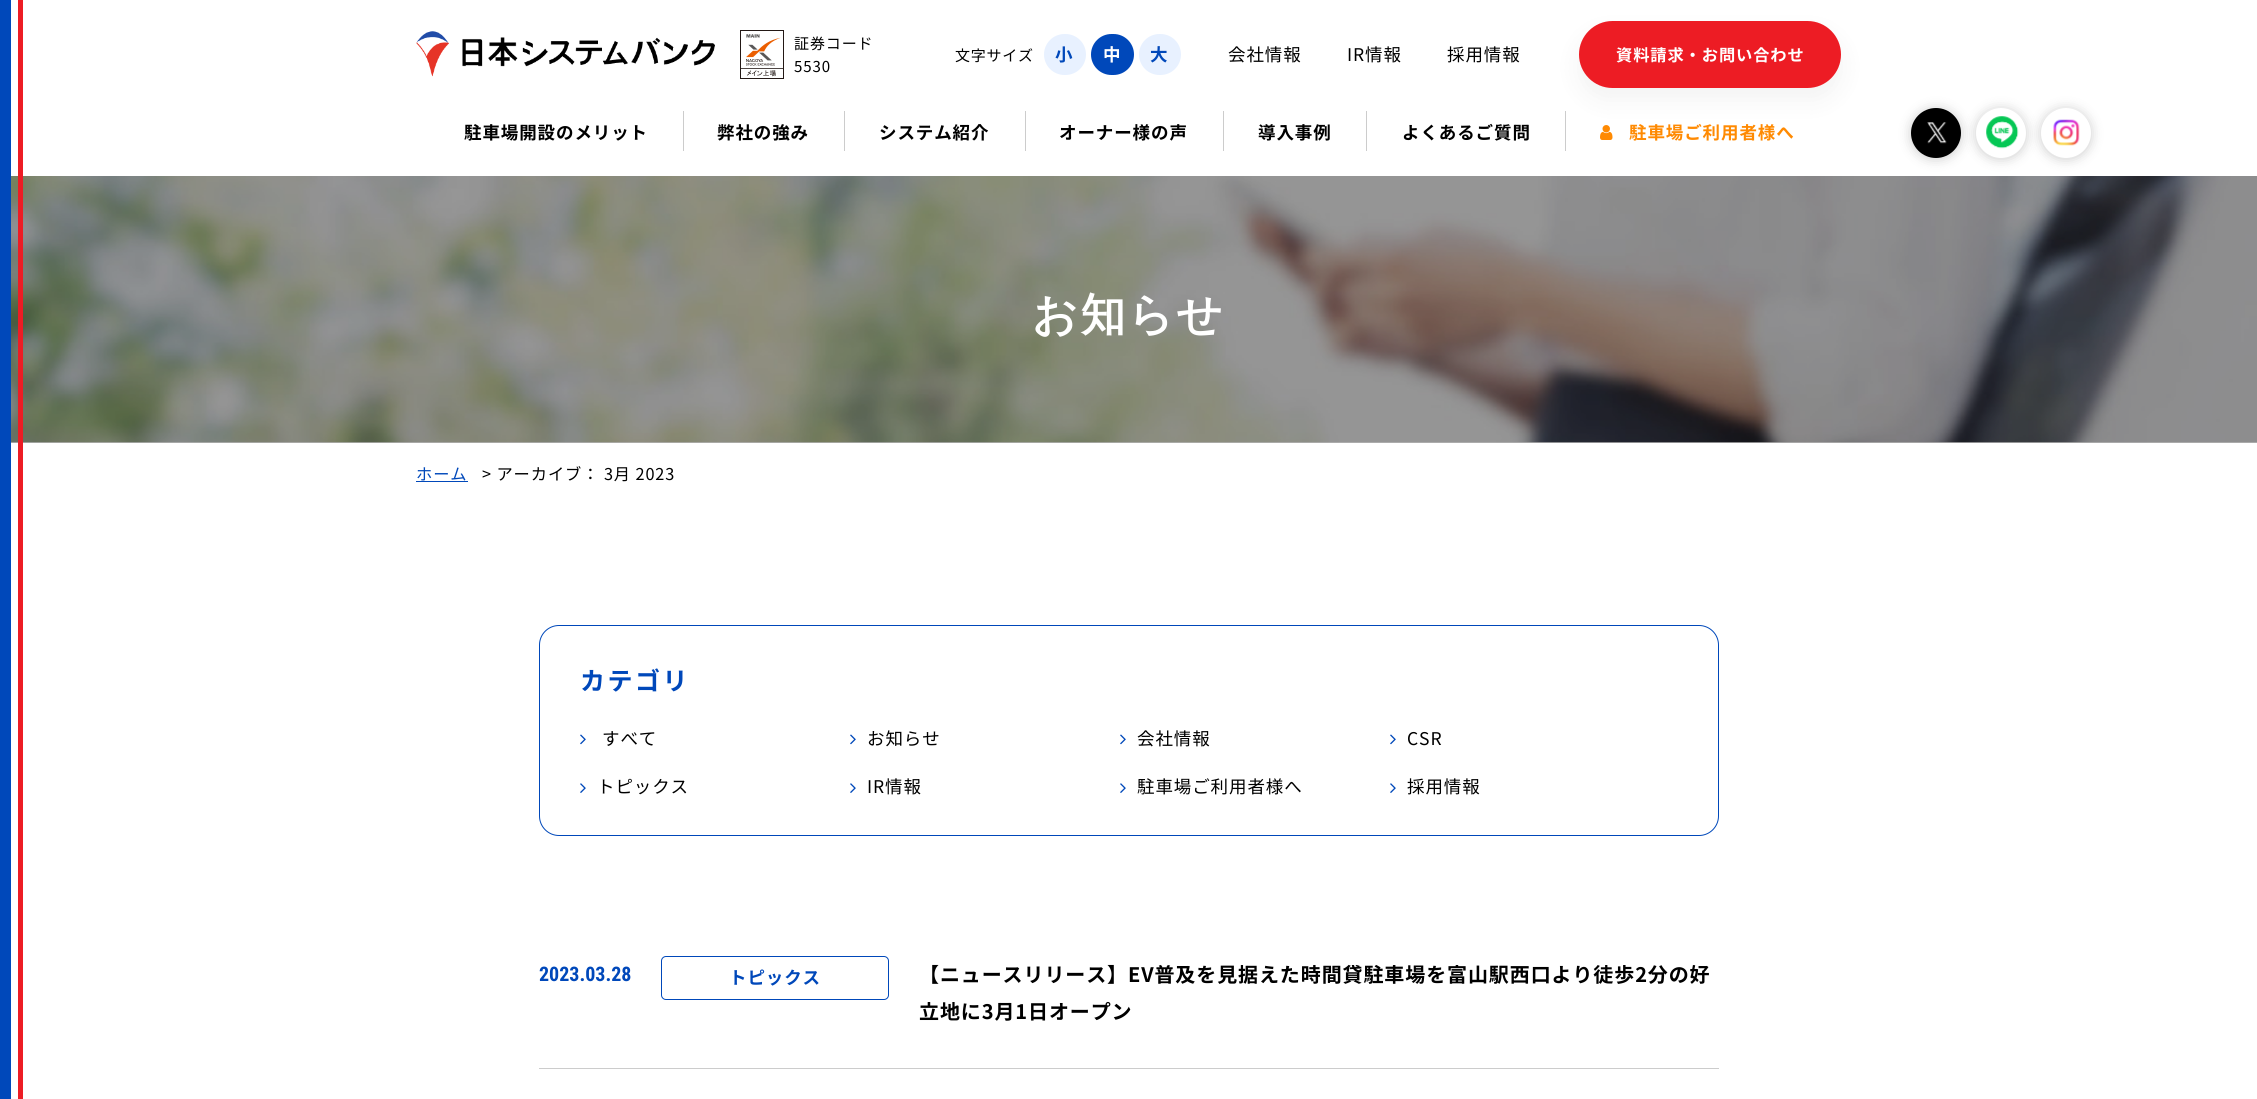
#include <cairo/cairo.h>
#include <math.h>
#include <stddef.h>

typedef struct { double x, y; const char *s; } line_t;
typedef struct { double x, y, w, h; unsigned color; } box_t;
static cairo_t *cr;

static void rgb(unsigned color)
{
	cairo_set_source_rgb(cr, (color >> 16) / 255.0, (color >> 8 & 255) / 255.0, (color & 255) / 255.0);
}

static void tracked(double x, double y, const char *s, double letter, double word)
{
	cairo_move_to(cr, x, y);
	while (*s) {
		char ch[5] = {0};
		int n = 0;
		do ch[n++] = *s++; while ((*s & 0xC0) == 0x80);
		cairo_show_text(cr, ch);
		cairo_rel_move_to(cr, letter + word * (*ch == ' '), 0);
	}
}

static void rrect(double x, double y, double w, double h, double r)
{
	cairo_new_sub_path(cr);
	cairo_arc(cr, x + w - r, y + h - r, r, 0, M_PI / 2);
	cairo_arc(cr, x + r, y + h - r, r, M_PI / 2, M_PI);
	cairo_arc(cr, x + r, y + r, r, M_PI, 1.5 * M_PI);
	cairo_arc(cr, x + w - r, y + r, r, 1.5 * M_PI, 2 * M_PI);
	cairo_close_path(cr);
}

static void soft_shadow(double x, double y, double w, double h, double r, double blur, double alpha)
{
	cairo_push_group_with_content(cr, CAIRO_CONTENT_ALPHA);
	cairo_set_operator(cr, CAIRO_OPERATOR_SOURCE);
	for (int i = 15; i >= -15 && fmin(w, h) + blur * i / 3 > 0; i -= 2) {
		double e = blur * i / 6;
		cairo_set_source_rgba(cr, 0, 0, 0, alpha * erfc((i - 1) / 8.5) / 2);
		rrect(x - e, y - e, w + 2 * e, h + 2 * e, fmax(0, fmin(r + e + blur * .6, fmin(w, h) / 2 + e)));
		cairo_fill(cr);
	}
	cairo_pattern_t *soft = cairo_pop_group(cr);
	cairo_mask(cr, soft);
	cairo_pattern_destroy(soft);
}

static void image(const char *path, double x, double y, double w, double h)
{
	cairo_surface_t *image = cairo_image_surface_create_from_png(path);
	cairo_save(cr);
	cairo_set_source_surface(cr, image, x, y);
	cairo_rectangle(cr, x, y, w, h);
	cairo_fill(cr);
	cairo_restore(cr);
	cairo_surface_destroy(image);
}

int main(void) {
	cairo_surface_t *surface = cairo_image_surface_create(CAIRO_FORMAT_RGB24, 2257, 1099);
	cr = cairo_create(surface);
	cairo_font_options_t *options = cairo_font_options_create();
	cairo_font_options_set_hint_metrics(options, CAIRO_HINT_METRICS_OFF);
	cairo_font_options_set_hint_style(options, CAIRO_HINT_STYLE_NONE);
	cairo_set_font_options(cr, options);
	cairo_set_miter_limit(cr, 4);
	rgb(0xffffff);
	cairo_paint(cr);
	rgb(0xb3b3b3);
	cairo_rectangle(cr, 11, 442, 2246, 1);
	cairo_fill(cr);
	image("img/7.png", 11, 176, 2246, 267);
	{
		static const box_t items[] = {
			{18, 175, 5, 924, 0xed1c24},
			{18, 175, 5, 1, 0xffffff},
			{18, 0, 5, 176, 0xed1c24},
		};
		for (size_t i = 0; i < sizeof items / sizeof *items; i++) {
			rgb(items[i].color);
			cairo_rectangle(cr, items[i].x, items[i].y, items[i].w, items[i].h);
			cairo_fill(cr);
		}
	}
	image("img/1.png", 416, 31, 299, 46);
	image("img/2.png", 740, 30, 44, 49);
	rgb(0xe8f1ff);
	rrect(1044, 34, 42, 41, 20.5);
	cairo_fill(cr);
	rgb(0x0048ba);
	rrect(1091, 34, 43, 41, 20.5);
	cairo_fill(cr);
	rgb(0xe8f1ff);
	rrect(1139, 34, 42, 41, 20.5);
	cairo_fill(cr);
	rgb(0x000000);
	soft_shadow(1579, 34, 262, 66, 33, 12.5, 0.05);
	rgb(0xed1c24);
	rrect(1579, 21, 262, 67, 33.5);
	cairo_fill(cr);
	{
		static const box_t items[] = {
			{683, 111, 1, 40, 0xcccccc},
			{844, 111, 1, 40, 0xcccccc},
			{1025, 111, 1, 40, 0xcccccc},
			{1223, 111, 1, 40, 0xcccccc},
			{1366, 111, 1, 40, 0xcccccc},
			{1565, 111, 1, 40, 0xcccccc},
		};
		for (size_t i = 0; i < sizeof items / sizeof *items; i++) {
			rgb(items[i].color);
			cairo_rectangle(cr, items[i].x, items[i].y, items[i].w, items[i].h);
			cairo_fill(cr);
		}
	}
	image("img/3.png", 1600, 125, 13, 15);
	rgb(0x000000);
	soft_shadow(1911, 109, 50, 50, 25, 6, 0.2);
	rgb(0x000000);
	cairo_arc(cr, 1936, 133, 25, 0, 2 * M_PI);
	cairo_fill(cr);
	image("img/4.png", 1927, 122, 20, 22);
	rgb(0x000000);
	soft_shadow(1976, 109, 50, 50, 25, 6, 0.2);
	rgb(0xffffff);
	cairo_arc(cr, 2001, 133, 25, 0, 2 * M_PI);
	cairo_fill(cr);
	image("img/5.png", 1986, 116, 33, 33);
	rgb(0x000000);
	soft_shadow(2041, 109, 50, 50, 25, 6, 0.2);
	rgb(0xffffff);
	cairo_arc(cr, 2066, 133, 25, 0, 2 * M_PI);
	cairo_fill(cr);
	image("img/6.png", 2053, 119, 27, 27);
	rgb(0x0048ba);
	cairo_rectangle(cr, 0, 0, 11, 1099);
	cairo_fill(cr);
	cairo_rectangle(cr, 416, 481, 52, 1);
	cairo_fill(cr);
	rrect(539.5, 625.5, 1179, 210, 19.5);
	cairo_set_line_width(cr, 1);
	cairo_stroke(cr);
	image("img/8.png", 580, 734, 6, 11);
	image("img/8.png", 850, 734, 6, 11);
	image("img/8.png", 1120, 734, 6, 11);
	image("img/8.png", 1390, 734, 6, 11);
	image("img/9.png", 580, 783, 6, 10);
	image("img/9.png", 850, 783, 6, 10);
	image("img/9.png", 1120, 783, 6, 10);
	image("img/9.png", 1390, 783, 6, 10);
	rgb(0xcccccc);
	cairo_rectangle(cr, 539, 1068, 1180, 1);
	cairo_fill(cr);
	rrect(661.5, 956.5, 227, 43, 4.5);
	rgb(0x0048ba);
	cairo_stroke(cr);
	cairo_select_font_face(cr, "Noto Sans JP", CAIRO_FONT_SLANT_NORMAL, CAIRO_FONT_WEIGHT_NORMAL);
	cairo_set_font_size(cr, 15);
	rgb(0x000000);
	tracked(794, 49, "証券コード", 0.9, 0);
	tracked(794, 72, "5530", 0.9, 0);
	tracked(955, 61, "文字サイズ", 0.75, 0);
	cairo_select_font_face(cr, "Noto Sans JP", CAIRO_FONT_SLANT_NORMAL, CAIRO_FONT_WEIGHT_BOLD);
	cairo_set_font_size(cr, 17.5);
	rgb(0x0048ba);
	tracked(1055, 61, "小", 0.9, 0);
	rgb(0xffffff);
	tracked(1103, 61, "中", 0.9, 0);
	rgb(0x0048ba);
	tracked(1150, 61, "大", 0.9, 0);
	cairo_select_font_face(cr, "Noto Sans JP", CAIRO_FONT_SLANT_NORMAL, CAIRO_FONT_WEIGHT_NORMAL);
	rgb(0x000000);
	{
		static const line_t items[] = {
			{1228, 61, "会社情報"},
			{1347, 61, "IR情報"},
			{1447, 61, "採用情報"},
		};
		for (size_t i = 0; i < sizeof items / sizeof *items; i++) {
			tracked(items[i].x, items[i].y, items[i].s, 0.9, 0);
		}
	}
	cairo_select_font_face(cr, "Noto Sans JP", CAIRO_FONT_SLANT_NORMAL, CAIRO_FONT_WEIGHT_BOLD);
	cairo_set_font_size(cr, 16.25);
	rgb(0xffffff);
	tracked(1616, 61, "資料請求・お問い合わせ", 0.9, 0);
	cairo_set_font_size(cr, 17.5);
	rgb(0x000000);
	{
		static const line_t items[] = {
			{464, 139, "駐車場開設のメリット"},
			{717, 139, "弊社の強み"},
			{879, 139, "システム紹介"},
			{1059, 139, "オーナー様の声"},
			{1258, 139, "導入事例"},
			{1402, 139, "よくあるご質問"},
		};
		for (size_t i = 0; i < sizeof items / sizeof *items; i++) {
			tracked(items[i].x, items[i].y, items[i].s, 0.9, 0);
		}
	}
	rgb(0xff8a02);
	tracked(1629, 139, "駐車場ご利用者様へ", 0.9, 0);
	cairo_select_font_face(cr, "WenQuanYi Zen Hei", CAIRO_FONT_SLANT_NORMAL, CAIRO_FONT_WEIGHT_BOLD);
	cairo_set_font_size(cr, 45);
	rgb(0xffffff);
	tracked(1032, 330, "お知らせ", 2.5, 0);
	cairo_select_font_face(cr, "Noto Sans JP", CAIRO_FONT_SLANT_NORMAL, CAIRO_FONT_WEIGHT_NORMAL);
	cairo_set_font_size(cr, 16.25);
	rgb(0x0048ba);
	tracked(416, 480, "ホーム", 0.9, 0);
	rgb(0x000000);
	tracked(482, 480, "> アーカイブ： 3月 2023", 0.9, 0);
	cairo_select_font_face(cr, "Noto Sans JP", CAIRO_FONT_SLANT_NORMAL, CAIRO_FONT_WEIGHT_BOLD);
	cairo_set_font_size(cr, 25);
	rgb(0x0048ba);
	tracked(580, 690, "カテゴリ", 2.5, 0);
	cairo_select_font_face(cr, "Noto Sans JP", CAIRO_FONT_SLANT_NORMAL, CAIRO_FONT_WEIGHT_NORMAL);
	cairo_set_font_size(cr, 17.5);
	rgb(0x000000);
	{
		static const line_t items[] = {
			{602, 745, "すべて"},
			{867, 745, "お知らせ"},
			{1137, 745, "会社情報"},
			{1407, 745, "CSR"},
			{597, 793, "トピックス"},
			{867, 793, "IR情報"},
			{1137, 793, "駐車場ご利用者様へ"},
			{1407, 793, "採用情報"},
		};
		for (size_t i = 0; i < sizeof items / sizeof *items; i++) {
			tracked(items[i].x, items[i].y, items[i].s, 0.9, 0);
		}
	}
	cairo_select_font_face(cr, "Roboto Condensed", CAIRO_FONT_SLANT_NORMAL, CAIRO_FONT_WEIGHT_BOLD);
	cairo_set_font_size(cr, 20);
	rgb(0x0048ba);
	cairo_move_to(cr, 539, 981);
	cairo_show_text(cr, "2023.03.28");
	cairo_select_font_face(cr, "Noto Sans JP", CAIRO_FONT_SLANT_NORMAL, CAIRO_FONT_WEIGHT_BOLD);
	cairo_set_font_size(cr, 17.5);
	tracked(729, 984, "トピックス", 0.9, 0);
	cairo_set_font_size(cr, 20);
	rgb(0x000000);
	tracked(919, 982, "【ニュースリリース】EV普及を見据えた時間貸駐車場を富山駅西口より徒歩2分の好", 0.9, 0);
	tracked(919, 1019, "立地に3月1日オープン", 0.9, 0);
	cairo_surface_write_to_png(surface, "page.png");
	cairo_font_options_destroy(options);
	cairo_destroy(cr);
	cairo_surface_destroy(surface);
	return 0;
}
